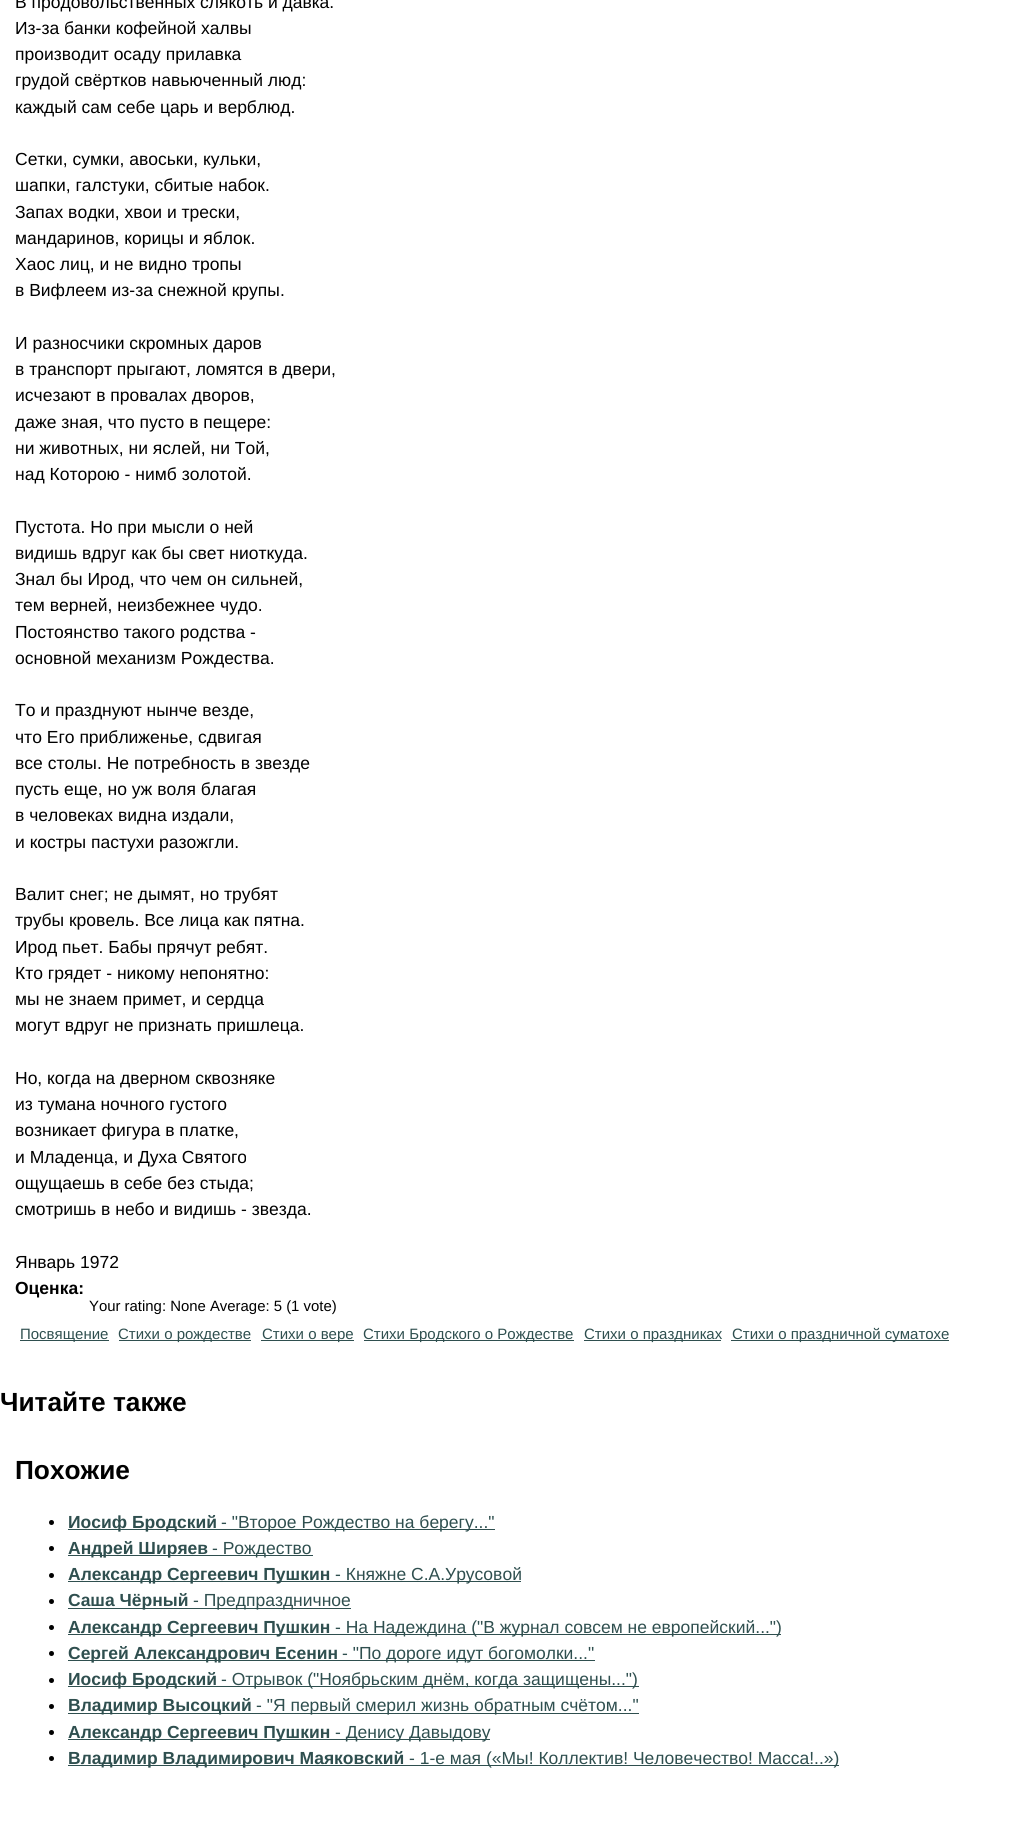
#include <cairo/cairo.h>
#include <math.h>
#include <stddef.h>

typedef struct { double x, y; const char *s; } line_t;
typedef struct { double x, y, w, h; unsigned color; } box_t;
static cairo_t *cr;

static void rgb(unsigned color)
{
	cairo_set_source_rgb(cr, (color >> 16) / 255.0, (color >> 8 & 255) / 255.0, (color & 255) / 255.0);
}

int main(void) {
	cairo_surface_t *surface = cairo_image_surface_create(CAIRO_FORMAT_RGB24, 1020, 1839);
	cr = cairo_create(surface);
	cairo_font_options_t *options = cairo_font_options_create();
	cairo_font_options_set_hint_metrics(options, CAIRO_HINT_METRICS_OFF);
	cairo_font_options_set_hint_style(options, CAIRO_HINT_STYLE_NONE);
	cairo_set_font_options(cr, options);
	cairo_set_miter_limit(cr, 4);
	rgb(0xffffff);
	cairo_paint(cr);
	{
		static const box_t items[] = {
			{20, 1340, 89, 1, 0x2f4f4f},
			{119, 1340, 132, 1, 0x2f4f4f},
			{261, 1340, 93, 1, 0x2f4f4f},
			{364, 1340, 210, 1, 0x2f4f4f},
			{584, 1340, 137, 1, 0x2f4f4f},
			{731, 1340, 218, 1, 0x2f4f4f},
		};
		for (size_t i = 0; i < sizeof items / sizeof *items; i++) {
			rgb(items[i].color);
			cairo_rectangle(cr, items[i].x, items[i].y, items[i].w, items[i].h);
			cairo_fill(cr);
		}
	}
	rgb(0x000000);
	cairo_arc(cr, 51.5, 1522.5, 2.5, 0, 2 * M_PI);
	cairo_fill(cr);
	rgb(0x2f4f4f);
	cairo_rectangle(cr, 68, 1529, 427, 1);
	cairo_fill(cr);
	rgb(0x000000);
	cairo_arc(cr, 51.5, 1548.5, 2.5, 0, 2 * M_PI);
	cairo_fill(cr);
	rgb(0x2f4f4f);
	cairo_rectangle(cr, 68, 1555, 245, 1);
	cairo_fill(cr);
	rgb(0x000000);
	cairo_arc(cr, 51.5, 1575.5, 2.5, 0, 2 * M_PI);
	cairo_fill(cr);
	rgb(0x2f4f4f);
	cairo_rectangle(cr, 68, 1581, 453, 1);
	cairo_fill(cr);
	rgb(0x000000);
	cairo_arc(cr, 51.5, 1601.5, 2.5, 0, 2 * M_PI);
	cairo_fill(cr);
	rgb(0x2f4f4f);
	cairo_rectangle(cr, 68, 1608, 283, 1);
	cairo_fill(cr);
	rgb(0x000000);
	cairo_arc(cr, 51.5, 1627.5, 2.5, 0, 2 * M_PI);
	cairo_fill(cr);
	rgb(0x2f4f4f);
	cairo_rectangle(cr, 68, 1634, 713, 1);
	cairo_fill(cr);
	rgb(0x000000);
	cairo_arc(cr, 51.5, 1653.5, 2.5, 0, 2 * M_PI);
	cairo_fill(cr);
	rgb(0x2f4f4f);
	cairo_rectangle(cr, 68, 1660, 527, 1);
	cairo_fill(cr);
	rgb(0x000000);
	cairo_arc(cr, 51.5, 1680.5, 2.5, 0, 2 * M_PI);
	cairo_fill(cr);
	rgb(0x2f4f4f);
	cairo_rectangle(cr, 68, 1686, 571, 1);
	cairo_fill(cr);
	rgb(0x000000);
	cairo_arc(cr, 51.5, 1706.5, 2.5, 0, 2 * M_PI);
	cairo_fill(cr);
	rgb(0x2f4f4f);
	cairo_rectangle(cr, 68, 1713, 571, 1);
	cairo_fill(cr);
	rgb(0x000000);
	cairo_arc(cr, 51.5, 1732.5, 2.5, 0, 2 * M_PI);
	cairo_fill(cr);
	rgb(0x2f4f4f);
	cairo_rectangle(cr, 68, 1739, 422, 1);
	cairo_fill(cr);
	rgb(0x000000);
	cairo_arc(cr, 51.5, 1758.5, 2.5, 0, 2 * M_PI);
	cairo_fill(cr);
	rgb(0x2f4f4f);
	cairo_rectangle(cr, 68, 1765, 771, 1);
	cairo_fill(cr);
	cairo_select_font_face(cr, "Liberation Sans", CAIRO_FONT_SLANT_NORMAL, CAIRO_FONT_WEIGHT_NORMAL);
	cairo_set_font_size(cr, 17.5);
	rgb(0x000000);
	{
		static const line_t items[] = {
			{15, 8, "В продовольственных слякоть и давка."},
			{15, 34, "Из-за банки кофейной халвы"},
			{15, 60, "производит осаду прилавка"},
			{15, 86, "грудой свёртков навьюченный люд:"},
			{15, 113, "каждый сам себе царь и верблюд."},
			{15, 165, "Сетки, сумки, авоськи, кульки,"},
			{15, 191, "шапки, галстуки, сбитые набок."},
			{15, 218, "Запах водки, хвои и трески,"},
			{15, 244, "мандаринов, корицы и яблок."},
			{15, 270, "Хаос лиц, и не видно тропы"},
			{15, 296, "в Вифлеем из-за снежной крупы."},
			{15, 349, "И разносчики скромных даров"},
			{15, 375, "в транспорт прыгают, ломятся в двери,"},
			{15, 401, "исчезают в провалах дворов,"},
			{15, 428, "даже зная, что пусто в пещере:"},
			{15, 454, "ни животных, ни яслей, ни Той,"},
			{15, 480, "над Которою - нимб золотой."},
			{15, 533, "Пустота. Но при мысли о ней"},
			{15, 559, "видишь вдруг как бы свет ниоткуда."},
			{15, 585, "Знал бы Ирод, что чем он сильней,"},
			{15, 611, "тем верней, неизбежнее чудо."},
			{15, 638, "Постоянство такого родства -"},
			{15, 664, "основной механизм Рождества."},
			{15, 716, "То и празднуют нынче везде,"},
			{15, 743, "что Его приближенье, сдвигая"},
			{15, 769, "все столы. Не потребность в звезде"},
			{15, 795, "пусть еще, но уж воля благая"},
			{15, 821, "в человеках видна издали,"},
			{15, 848, "и костры пастухи разожгли."},
			{15, 900, "Валит снег; не дымят, но трубят"},
			{15, 926, "трубы кровель. Все лица как пятна."},
			{15, 953, "Ирод пьет. Бабы прячут ребят."},
			{15, 979, "Кто грядет - никому непонятно:"},
			{15, 1005, "мы не знаем примет, и сердца"},
			{15, 1031, "могут вдруг не признать пришлеца."},
			{15, 1084, "Но, когда на дверном сквозняке"},
			{15, 1110, "из тумана ночного густого"},
			{15, 1136, "возникает фигура в платке,"},
			{15, 1163, "и Младенца, и Духа Святого"},
			{15, 1189, "ощущаешь в себе без стыда;"},
			{15, 1215, "смотришь в небо и видишь - звезда."},
			{15, 1268, "Январь 1972"},
		};
		for (size_t i = 0; i < sizeof items / sizeof *items; i++) {
			cairo_move_to(cr, items[i].x, items[i].y);
			cairo_show_text(cr, items[i].s);
		}
	}
	cairo_select_font_face(cr, "Liberation Sans", CAIRO_FONT_SLANT_NORMAL, CAIRO_FONT_WEIGHT_BOLD);
	cairo_move_to(cr, 15, 1294);
	cairo_show_text(cr, "Оценка:");
	cairo_select_font_face(cr, "Liberation Sans", CAIRO_FONT_SLANT_NORMAL, CAIRO_FONT_WEIGHT_NORMAL);
	cairo_set_font_size(cr, 14.9);
	cairo_move_to(cr, 89, 1311);
	cairo_show_text(cr, "Your rating: None Average: 5 (1 vote)");
	cairo_set_font_size(cr, 15);
	rgb(0x2f4f4f);
	{
		static const line_t items[] = {
			{20, 1339, "Посвящение"},
			{118, 1339, "Стихи о рождестве"},
			{262, 1339, "Стихи о вере"},
			{363, 1339, "Стихи Бродского о Рождестве"},
			{584, 1339, "Стихи о праздниках"},
			{732, 1339, "Стихи о праздничной суматохе"},
		};
		for (size_t i = 0; i < sizeof items / sizeof *items; i++) {
			cairo_move_to(cr, items[i].x, items[i].y);
			cairo_show_text(cr, items[i].s);
		}
	}
	cairo_select_font_face(cr, "Liberation Sans", CAIRO_FONT_SLANT_NORMAL, CAIRO_FONT_WEIGHT_BOLD);
	cairo_set_font_size(cr, 26.25);
	rgb(0x000000);
	cairo_move_to(cr, 0, 1411);
	cairo_show_text(cr, "Читайте также");
	cairo_move_to(cr, 15, 1479);
	cairo_show_text(cr, "Похожие");
	cairo_set_font_size(cr, 17.5);
	rgb(0x2f4f4f);
	cairo_move_to(cr, 68, 1528);
	cairo_show_text(cr, "Иосиф Бродский");
	cairo_select_font_face(cr, "Liberation Sans", CAIRO_FONT_SLANT_NORMAL, CAIRO_FONT_WEIGHT_NORMAL);
	cairo_move_to(cr, 221, 1528);
	cairo_show_text(cr, "- \"Второе Рождество на берегу...\"");
	cairo_select_font_face(cr, "Liberation Sans", CAIRO_FONT_SLANT_NORMAL, CAIRO_FONT_WEIGHT_BOLD);
	cairo_move_to(cr, 68, 1554);
	cairo_show_text(cr, "Андрей Ширяев");
	cairo_select_font_face(cr, "Liberation Sans", CAIRO_FONT_SLANT_NORMAL, CAIRO_FONT_WEIGHT_NORMAL);
	cairo_move_to(cr, 212, 1554);
	cairo_show_text(cr, "- Рождество");
	cairo_select_font_face(cr, "Liberation Sans", CAIRO_FONT_SLANT_NORMAL, CAIRO_FONT_WEIGHT_BOLD);
	cairo_move_to(cr, 68, 1580);
	cairo_show_text(cr, "Александр Сергеевич Пушкин");
	cairo_select_font_face(cr, "Liberation Sans", CAIRO_FONT_SLANT_NORMAL, CAIRO_FONT_WEIGHT_NORMAL);
	cairo_move_to(cr, 335, 1580);
	cairo_show_text(cr, "- Княжне С.А.Урусовой");
	cairo_select_font_face(cr, "Liberation Sans", CAIRO_FONT_SLANT_NORMAL, CAIRO_FONT_WEIGHT_BOLD);
	cairo_move_to(cr, 68, 1606);
	cairo_show_text(cr, "Саша Чёрный");
	cairo_select_font_face(cr, "Liberation Sans", CAIRO_FONT_SLANT_NORMAL, CAIRO_FONT_WEIGHT_NORMAL);
	cairo_move_to(cr, 193, 1606);
	cairo_show_text(cr, "- Предпраздничное");
	cairo_select_font_face(cr, "Liberation Sans", CAIRO_FONT_SLANT_NORMAL, CAIRO_FONT_WEIGHT_BOLD);
	cairo_move_to(cr, 68, 1633);
	cairo_show_text(cr, "Александр Сергеевич Пушкин");
	cairo_select_font_face(cr, "Liberation Sans", CAIRO_FONT_SLANT_NORMAL, CAIRO_FONT_WEIGHT_NORMAL);
	cairo_move_to(cr, 335, 1633);
	cairo_show_text(cr, "- На Надеждина (\"В журнал совсем не европейский...\")");
	cairo_select_font_face(cr, "Liberation Sans", CAIRO_FONT_SLANT_NORMAL, CAIRO_FONT_WEIGHT_BOLD);
	cairo_move_to(cr, 68, 1659);
	cairo_show_text(cr, "Сергей Александрович Есенин");
	cairo_select_font_face(cr, "Liberation Sans", CAIRO_FONT_SLANT_NORMAL, CAIRO_FONT_WEIGHT_NORMAL);
	cairo_move_to(cr, 342, 1659);
	cairo_show_text(cr, "- \"По дороге идут богомолки...\"");
	cairo_select_font_face(cr, "Liberation Sans", CAIRO_FONT_SLANT_NORMAL, CAIRO_FONT_WEIGHT_BOLD);
	cairo_move_to(cr, 68, 1685);
	cairo_show_text(cr, "Иосиф Бродский");
	cairo_select_font_face(cr, "Liberation Sans", CAIRO_FONT_SLANT_NORMAL, CAIRO_FONT_WEIGHT_NORMAL);
	cairo_move_to(cr, 221, 1685);
	cairo_show_text(cr, "- Отрывок (\"Ноябрьским днём, когда защищены...\")");
	cairo_select_font_face(cr, "Liberation Sans", CAIRO_FONT_SLANT_NORMAL, CAIRO_FONT_WEIGHT_BOLD);
	cairo_move_to(cr, 68, 1711);
	cairo_show_text(cr, "Владимир Высоцкий");
	cairo_select_font_face(cr, "Liberation Sans", CAIRO_FONT_SLANT_NORMAL, CAIRO_FONT_WEIGHT_NORMAL);
	cairo_move_to(cr, 256, 1711);
	cairo_show_text(cr, "- \"Я первый смерил жизнь обратным счётом...\"");
	cairo_select_font_face(cr, "Liberation Sans", CAIRO_FONT_SLANT_NORMAL, CAIRO_FONT_WEIGHT_BOLD);
	cairo_move_to(cr, 68, 1738);
	cairo_show_text(cr, "Александр Сергеевич Пушкин");
	cairo_select_font_face(cr, "Liberation Sans", CAIRO_FONT_SLANT_NORMAL, CAIRO_FONT_WEIGHT_NORMAL);
	cairo_move_to(cr, 335, 1738);
	cairo_show_text(cr, "- Денису Давыдову");
	cairo_select_font_face(cr, "Liberation Sans", CAIRO_FONT_SLANT_NORMAL, CAIRO_FONT_WEIGHT_BOLD);
	cairo_move_to(cr, 68, 1764);
	cairo_show_text(cr, "Владимир Владимирович Маяковский");
	cairo_select_font_face(cr, "Liberation Sans", CAIRO_FONT_SLANT_NORMAL, CAIRO_FONT_WEIGHT_NORMAL);
	cairo_move_to(cr, 409, 1764);
	cairo_show_text(cr, "- 1-е мая («Мы! Коллектив! Человечество! Масса!..»)");
	cairo_surface_write_to_png(surface, "page.png");
	cairo_font_options_destroy(options);
	cairo_destroy(cr);
	cairo_surface_destroy(surface);
	return 0;
}
